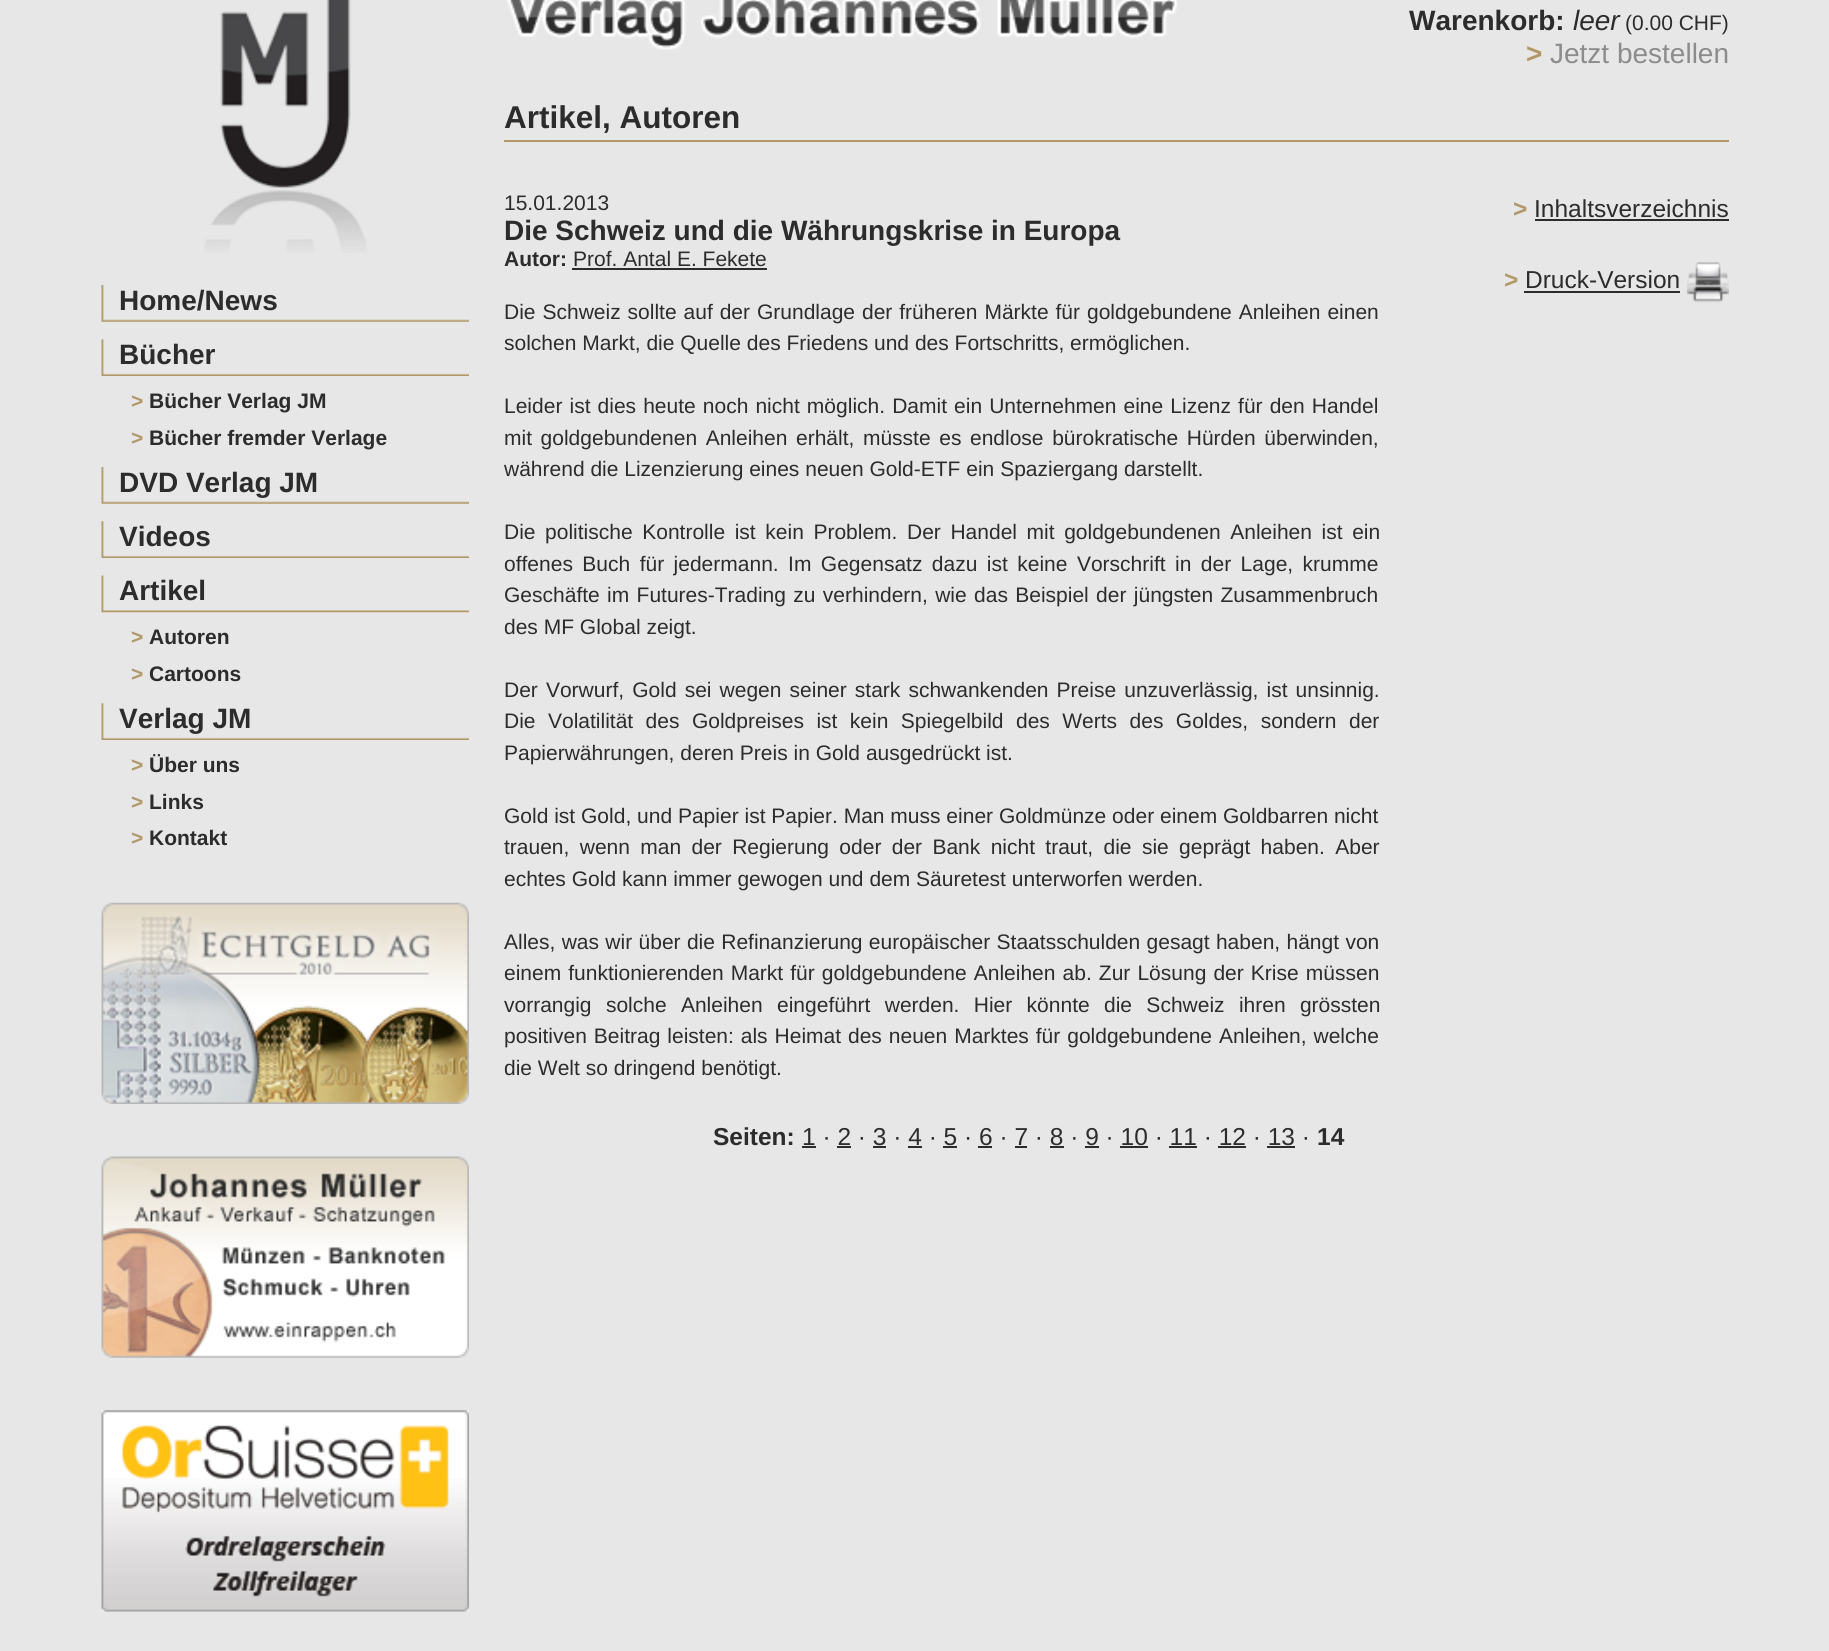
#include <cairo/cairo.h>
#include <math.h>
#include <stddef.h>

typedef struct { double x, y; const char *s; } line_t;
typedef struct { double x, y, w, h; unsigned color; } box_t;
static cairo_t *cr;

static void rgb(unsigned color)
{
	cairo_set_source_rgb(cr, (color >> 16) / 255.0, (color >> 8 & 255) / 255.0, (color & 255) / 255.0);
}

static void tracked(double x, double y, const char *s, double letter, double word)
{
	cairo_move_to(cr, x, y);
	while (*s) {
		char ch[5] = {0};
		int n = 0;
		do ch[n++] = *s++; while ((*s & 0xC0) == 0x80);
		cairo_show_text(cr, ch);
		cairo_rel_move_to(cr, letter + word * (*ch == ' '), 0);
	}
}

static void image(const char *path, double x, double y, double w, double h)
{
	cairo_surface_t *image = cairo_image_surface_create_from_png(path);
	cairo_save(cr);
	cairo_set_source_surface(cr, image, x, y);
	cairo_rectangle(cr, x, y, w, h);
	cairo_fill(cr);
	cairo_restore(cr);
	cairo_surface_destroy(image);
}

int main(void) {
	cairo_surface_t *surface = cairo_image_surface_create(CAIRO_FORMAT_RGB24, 1829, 1651);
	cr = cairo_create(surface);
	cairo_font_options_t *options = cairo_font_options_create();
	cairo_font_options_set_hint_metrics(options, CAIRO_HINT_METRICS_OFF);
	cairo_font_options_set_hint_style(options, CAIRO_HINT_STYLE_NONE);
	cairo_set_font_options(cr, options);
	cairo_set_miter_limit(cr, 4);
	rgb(0xe7e7e7);
	cairo_paint(cr);
	image("img/1.png", 204, 0, 163, 253);
	image("img/2.png", 101, 285, 368, 37);
	image("img/3.png", 101, 339, 368, 37);
	image("img/2.png", 101, 467, 368, 37);
	image("img/3.png", 101, 521, 368, 37);
	image("img/4.png", 101, 575, 368, 38);
	image("img/3.png", 101, 703, 368, 37);
	image("img/5.png", 101, 902, 368, 202);
	image("img/6.png", 101, 1156, 368, 202);
	image("img/7.png", 101, 1410, 368, 202);
	image("img/8.png", 507, 0, 671, 50);
	{
		static const box_t items[] = {
			{504, 140, 1225, 2, 0xb29867},
			{572, 268, 195, 2, 0x2c2c2c},
			{1535, 219, 194, 2, 0x2c2c2c},
			{1524, 291, 156, 2, 0x2c2c2c},
		};
		for (size_t i = 0; i < sizeof items / sizeof *items; i++) {
			rgb(items[i].color);
			cairo_rectangle(cr, items[i].x, items[i].y, items[i].w, items[i].h);
			cairo_fill(cr);
		}
	}
	image("img/9.png", 1687, 262, 42, 41);
	{
		static const box_t items[] = {
			{802, 1146, 14, 2, 0x2c2c2c},
			{837, 1146, 14, 2, 0x2c2c2c},
			{873, 1146, 13, 2, 0x2c2c2c},
			{908, 1146, 14, 2, 0x2c2c2c},
			{943, 1146, 14, 2, 0x2c2c2c},
			{978, 1146, 14, 2, 0x2c2c2c},
			{1015, 1146, 12, 2, 0x2c2c2c},
			{1050, 1146, 14, 2, 0x2c2c2c},
			{1085, 1146, 14, 2, 0x2c2c2c},
			{1120, 1146, 28, 2, 0x2c2c2c},
			{1169, 1146, 28, 2, 0x2c2c2c},
			{1218, 1146, 28, 2, 0x2c2c2c},
			{1267, 1146, 28, 2, 0x2c2c2c},
		};
		for (size_t i = 0; i < sizeof items / sizeof *items; i++) {
			rgb(items[i].color);
			cairo_rectangle(cr, items[i].x, items[i].y, items[i].w, items[i].h);
			cairo_fill(cr);
		}
	}
	cairo_select_font_face(cr, "Liberation Sans", CAIRO_FONT_SLANT_NORMAL, CAIRO_FONT_WEIGHT_BOLD);
	cairo_set_font_size(cr, 28);
	cairo_move_to(cr, 119, 310);
	cairo_show_text(cr, "Home/News");
	cairo_move_to(cr, 119, 364);
	cairo_show_text(cr, "Bücher");
	cairo_set_font_size(cr, 21);
	rgb(0xb29867);
	cairo_move_to(cr, 131, 408);
	cairo_show_text(cr, ">");
	rgb(0x2c2c2c);
	cairo_move_to(cr, 149, 408);
	cairo_show_text(cr, "Bücher Verlag JM");
	rgb(0xb29867);
	cairo_move_to(cr, 131, 445);
	cairo_show_text(cr, ">");
	rgb(0x2c2c2c);
	cairo_move_to(cr, 149, 445);
	cairo_show_text(cr, "Bücher fremder Verlage");
	cairo_set_font_size(cr, 28);
	{
		static const line_t items[] = {
			{119, 492, "DVD Verlag JM"},
			{119, 546, "Videos"},
			{119, 600, "Artikel"},
		};
		for (size_t i = 0; i < sizeof items / sizeof *items; i++) {
			cairo_move_to(cr, items[i].x, items[i].y);
			cairo_show_text(cr, items[i].s);
		}
	}
	cairo_set_font_size(cr, 21);
	rgb(0xb29867);
	cairo_move_to(cr, 131, 644);
	cairo_show_text(cr, ">");
	rgb(0x2c2c2c);
	cairo_move_to(cr, 149, 644);
	cairo_show_text(cr, "Autoren");
	rgb(0xb29867);
	cairo_move_to(cr, 131, 681);
	cairo_show_text(cr, ">");
	rgb(0x2c2c2c);
	cairo_move_to(cr, 149, 681);
	cairo_show_text(cr, "Cartoons");
	cairo_set_font_size(cr, 28);
	cairo_move_to(cr, 119, 728);
	cairo_show_text(cr, "Verlag JM");
	cairo_set_font_size(cr, 21);
	rgb(0xb29867);
	cairo_move_to(cr, 131, 772);
	cairo_show_text(cr, ">");
	rgb(0x2c2c2c);
	cairo_move_to(cr, 149, 772);
	cairo_show_text(cr, "Über uns");
	rgb(0xb29867);
	cairo_move_to(cr, 131, 809);
	cairo_show_text(cr, ">");
	rgb(0x2c2c2c);
	cairo_move_to(cr, 149, 809);
	cairo_show_text(cr, "Links");
	rgb(0xb29867);
	cairo_move_to(cr, 131, 845);
	cairo_show_text(cr, ">");
	rgb(0x2c2c2c);
	cairo_move_to(cr, 149, 845);
	cairo_show_text(cr, "Kontakt");
	cairo_set_font_size(cr, 28);
	cairo_move_to(cr, 1409, 30);
	cairo_show_text(cr, "Warenkorb:");
	cairo_select_font_face(cr, "Liberation Sans", CAIRO_FONT_SLANT_ITALIC, CAIRO_FONT_WEIGHT_NORMAL);
	cairo_move_to(cr, 1573, 30);
	cairo_show_text(cr, "leer");
	cairo_select_font_face(cr, "Liberation Sans", CAIRO_FONT_SLANT_NORMAL, CAIRO_FONT_WEIGHT_NORMAL);
	cairo_set_font_size(cr, 21);
	cairo_move_to(cr, 1625, 30);
	cairo_show_text(cr, "(0.00 CHF)");
	cairo_select_font_face(cr, "Liberation Sans", CAIRO_FONT_SLANT_NORMAL, CAIRO_FONT_WEIGHT_BOLD);
	cairo_set_font_size(cr, 28);
	rgb(0xb29867);
	cairo_move_to(cr, 1526, 63);
	cairo_show_text(cr, ">");
	cairo_select_font_face(cr, "Liberation Sans", CAIRO_FONT_SLANT_NORMAL, CAIRO_FONT_WEIGHT_NORMAL);
	rgb(0x8c8c8c);
	cairo_move_to(cr, 1550, 63);
	cairo_show_text(cr, "Jetzt bestellen");
	cairo_select_font_face(cr, "Liberation Sans", CAIRO_FONT_SLANT_NORMAL, CAIRO_FONT_WEIGHT_BOLD);
	cairo_set_font_size(cr, 31.5);
	rgb(0x2c2c2c);
	cairo_move_to(cr, 504, 128);
	cairo_show_text(cr, "Artikel, Autoren");
	cairo_select_font_face(cr, "Liberation Sans", CAIRO_FONT_SLANT_NORMAL, CAIRO_FONT_WEIGHT_NORMAL);
	cairo_set_font_size(cr, 21);
	cairo_move_to(cr, 504, 210);
	cairo_show_text(cr, "15.01.2013");
	cairo_select_font_face(cr, "Liberation Sans", CAIRO_FONT_SLANT_NORMAL, CAIRO_FONT_WEIGHT_BOLD);
	cairo_set_font_size(cr, 28);
	cairo_move_to(cr, 504, 240);
	cairo_show_text(cr, "Die Schweiz und die Währungskrise in Europa");
	cairo_set_font_size(cr, 21);
	cairo_move_to(cr, 504, 266);
	cairo_show_text(cr, "Autor:");
	cairo_select_font_face(cr, "Liberation Sans", CAIRO_FONT_SLANT_NORMAL, CAIRO_FONT_WEIGHT_NORMAL);
	cairo_move_to(cr, 573, 266);
	cairo_show_text(cr, "Prof. Antal E. Fekete");
	tracked(504, 319, "Die Schweiz sollte auf der Grundlage der früheren Märkte für goldgebundene Anleihen einen", 0, 1.1);
	cairo_move_to(cr, 504, 350);
	cairo_show_text(cr, "solchen Markt, die Quelle des Friedens und des Fortschritts, ermöglichen.");
	tracked(504, 413, "Leider ist dies heute noch nicht möglich. Damit ein Unternehmen eine Lizenz für den Handel", 0, 1.25);
	tracked(504, 445, "mit goldgebundenen Anleihen erhält, müsste es endlose bürokratische Hürden überwinden,", 0, 2.75);
	cairo_move_to(cr, 504, 476);
	cairo_show_text(cr, "während die Lizenzierung eines neuen Gold-ETF ein Spaziergang darstellt.");
	tracked(504, 539, "Die politische Kontrolle ist kein Problem. Der Handel mit goldgebundenen Anleihen ist ein", 0, 3.75);
	tracked(504, 571, "offenes Buch für jedermann. Im Gegensatz dazu ist keine Vorschrift in der Lage, krumme", 0, 3.6);
	tracked(504, 602, "Geschäfte im Futures-Trading zu verhindern, wie das Beispiel der jüngsten Zusammenbruch", 0, 1.5);
	cairo_move_to(cr, 504, 634);
	cairo_show_text(cr, "des MF Global zeigt.");
	tracked(504, 697, "Der Vorwurf, Gold sei wegen seiner stark schwankenden Preise unzuverlässig, ist unsinnig.", 0, 2.25);
	tracked(504, 728, "Die Volatilität des Goldpreises ist kein Spiegelbild des Werts des Goldes, sondern der", 0, 6.6);
	cairo_move_to(cr, 504, 760);
	cairo_show_text(cr, "Papierwährungen, deren Preis in Gold ausgedrückt ist.");
	cairo_move_to(cr, 504, 823);
	cairo_show_text(cr, "Gold ist Gold, und Papier ist Papier. Man muss einer Goldmünze oder einem Goldbarren nicht");
	tracked(504, 854, "trauen, wenn man der Regierung oder der Bank nicht traut, die sie geprägt haben. Aber", 0, 4.5);
	cairo_move_to(cr, 504, 886);
	cairo_show_text(cr, "echtes Gold kann immer gewogen und dem Säuretest unterworfen werden.");
	tracked(504, 949, "Alles, was wir über die Refinanzierung europäischer Staatsschulden gesagt haben, hängt von", 0, 0.5);
	tracked(504, 980, "einem funktionierenden Markt für goldgebundene Anleihen ab. Zur Lösung der Krise müssen", 0, 1.25);
	tracked(504, 1012, "vorrangig solche Anleihen eingeführt werden. Hier könnte die Schweiz ihren grössten", 0, 8.5);
	tracked(504, 1043, "positiven Beitrag leisten: als Heimat des neuen Marktes für goldgebundene Anleihen, welche", 0, 1.1);
	cairo_move_to(cr, 504, 1075);
	cairo_show_text(cr, "die Welt so dringend benötigt.");
	cairo_select_font_face(cr, "Liberation Sans", CAIRO_FONT_SLANT_NORMAL, CAIRO_FONT_WEIGHT_BOLD);
	cairo_set_font_size(cr, 24.5);
	rgb(0xb29867);
	cairo_move_to(cr, 1513, 217);
	cairo_show_text(cr, ">");
	cairo_select_font_face(cr, "Liberation Sans", CAIRO_FONT_SLANT_NORMAL, CAIRO_FONT_WEIGHT_NORMAL);
	rgb(0x2c2c2c);
	cairo_move_to(cr, 1534, 217);
	cairo_show_text(cr, "Inhaltsverzeichnis");
	cairo_select_font_face(cr, "Liberation Sans", CAIRO_FONT_SLANT_NORMAL, CAIRO_FONT_WEIGHT_BOLD);
	rgb(0xb29867);
	cairo_move_to(cr, 1504, 288);
	cairo_show_text(cr, ">");
	cairo_select_font_face(cr, "Liberation Sans", CAIRO_FONT_SLANT_NORMAL, CAIRO_FONT_WEIGHT_NORMAL);
	rgb(0x2c2c2c);
	cairo_move_to(cr, 1525, 288);
	cairo_show_text(cr, "Druck-Version");
	cairo_select_font_face(cr, "Liberation Sans", CAIRO_FONT_SLANT_NORMAL, CAIRO_FONT_WEIGHT_BOLD);
	cairo_move_to(cr, 713, 1145);
	cairo_show_text(cr, "Seiten:");
	cairo_select_font_face(cr, "Liberation Sans", CAIRO_FONT_SLANT_NORMAL, CAIRO_FONT_WEIGHT_NORMAL);
	cairo_move_to(cr, 802, 1145);
	cairo_show_text(cr, "1 · 2 · 3 · 4 · 5 · 6 · 7 · 8 · 9 · 10 · 11 · 12 · 13 ·");
	cairo_select_font_face(cr, "Liberation Sans", CAIRO_FONT_SLANT_NORMAL, CAIRO_FONT_WEIGHT_BOLD);
	cairo_move_to(cr, 1317, 1145);
	cairo_show_text(cr, "14");
	cairo_surface_write_to_png(surface, "page.png");
	cairo_font_options_destroy(options);
	cairo_destroy(cr);
	cairo_surface_destroy(surface);
	return 0;
}
